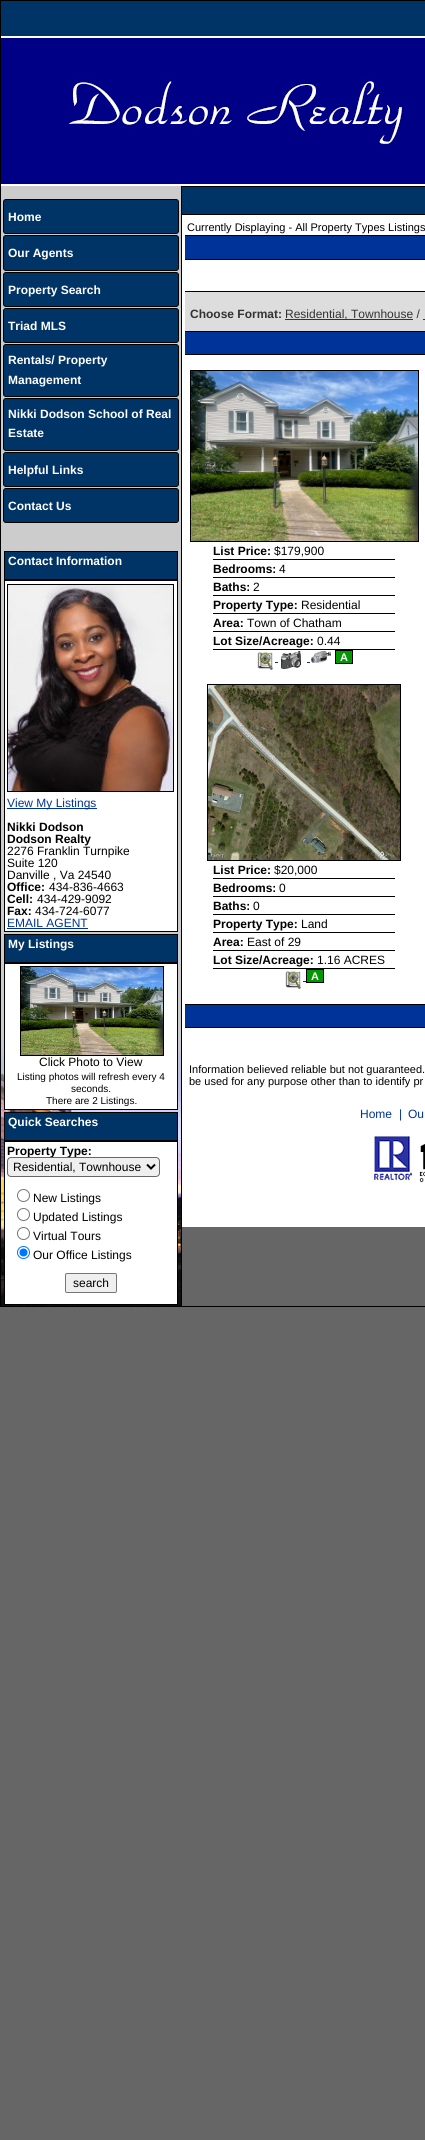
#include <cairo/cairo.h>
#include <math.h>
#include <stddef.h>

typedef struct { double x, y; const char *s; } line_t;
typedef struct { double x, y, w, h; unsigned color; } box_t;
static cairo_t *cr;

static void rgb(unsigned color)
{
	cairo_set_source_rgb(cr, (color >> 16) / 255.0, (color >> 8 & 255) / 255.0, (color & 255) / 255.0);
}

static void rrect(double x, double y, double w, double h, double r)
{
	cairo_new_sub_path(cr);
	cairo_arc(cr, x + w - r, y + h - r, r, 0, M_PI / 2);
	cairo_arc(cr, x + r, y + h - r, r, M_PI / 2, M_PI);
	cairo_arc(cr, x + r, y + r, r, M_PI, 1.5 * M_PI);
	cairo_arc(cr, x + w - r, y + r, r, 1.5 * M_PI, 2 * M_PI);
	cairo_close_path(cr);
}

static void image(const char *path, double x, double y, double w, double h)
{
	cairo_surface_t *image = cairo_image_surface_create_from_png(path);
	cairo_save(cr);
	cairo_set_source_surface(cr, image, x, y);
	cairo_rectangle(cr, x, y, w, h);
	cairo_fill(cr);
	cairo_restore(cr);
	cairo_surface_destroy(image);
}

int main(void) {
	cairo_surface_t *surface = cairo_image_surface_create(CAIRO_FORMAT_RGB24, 425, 2140);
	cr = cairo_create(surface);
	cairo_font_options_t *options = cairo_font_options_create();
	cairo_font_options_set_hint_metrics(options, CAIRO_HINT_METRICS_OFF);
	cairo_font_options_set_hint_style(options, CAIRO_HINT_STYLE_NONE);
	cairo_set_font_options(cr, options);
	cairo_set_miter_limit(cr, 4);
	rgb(0x666666);
	cairo_paint(cr);
	cairo_rectangle(cr, 0.5, 0.5, 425, 1306);
	rgb(0x000000);
	cairo_set_line_width(cr, 1);
	cairo_stroke(cr);
	rgb(0x003366);
	cairo_rectangle(cr, 1, 1, 424, 35);
	cairo_fill(cr);
	rgb(0xffffff);
	cairo_rectangle(cr, 1, 36, 424, 150);
	cairo_fill(cr);
	image("img/1.png", 1, 38, 424, 146);
	rgb(0xcccccc);
	cairo_rectangle(cr, 1, 186, 180, 852);
	cairo_fill(cr);
	image("img/2.png", 1, 1038, 180, 268);
	{
		static const box_t items[] = {
			{181, 186, 244, 1, 0x000000},
			{181, 214, 244, 1, 0x000000},
			{181, 186, 1, 1120, 0x000000},
		};
		for (size_t i = 0; i < sizeof items / sizeof *items; i++) {
			rgb(items[i].color);
			cairo_rectangle(cr, items[i].x, items[i].y, items[i].w, items[i].h);
			cairo_fill(cr);
		}
	}
	rgb(0x003366);
	rrect(3.5, 199.5, 175, 34, 2.5);
	cairo_fill_preserve(cr);
	rgb(0x000000);
	cairo_stroke(cr);
	rgb(0x003366);
	rrect(3.5, 235.5, 175, 35, 2.5);
	cairo_fill_preserve(cr);
	rgb(0x000000);
	cairo_stroke(cr);
	rgb(0x003366);
	rrect(3.5, 272.5, 175, 34, 2.5);
	cairo_fill_preserve(cr);
	rgb(0x000000);
	cairo_stroke(cr);
	rgb(0x003366);
	rrect(3.5, 308.5, 175, 34, 2.5);
	cairo_fill_preserve(cr);
	rgb(0x000000);
	cairo_stroke(cr);
	rgb(0x003366);
	rrect(3.5, 344.5, 175, 52, 2.5);
	cairo_fill_preserve(cr);
	rgb(0x000000);
	cairo_stroke(cr);
	rgb(0x003366);
	rrect(3.5, 398.5, 175, 52, 2.5);
	cairo_fill_preserve(cr);
	rgb(0x000000);
	cairo_stroke(cr);
	rgb(0x003366);
	rrect(3.5, 452.5, 175, 34, 2.5);
	cairo_fill_preserve(cr);
	rgb(0x000000);
	cairo_stroke(cr);
	rgb(0x003366);
	rrect(3.5, 488.5, 175, 34, 2.5);
	cairo_fill_preserve(cr);
	rgb(0x000000);
	cairo_stroke(cr);
	rgb(0x003366);
	cairo_rectangle(cr, 4.5, 551.5, 173, 28);
	cairo_fill_preserve(cr);
	rgb(0x000000);
	cairo_stroke(cr);
	rgb(0xffffff);
	cairo_rectangle(cr, 4.5, 580.5, 173, 351);
	cairo_fill_preserve(cr);
	rgb(0x000000);
	cairo_stroke(cr);
	cairo_rectangle(cr, 7.5, 584.5, 166, 207);
	cairo_stroke(cr);
	image("img/3.png", 8, 585, 165, 206);
	rgb(0x003399);
	cairo_rectangle(cr, 7, 808, 90, 1);
	cairo_fill(cr);
	cairo_rectangle(cr, 7, 928, 81, 1);
	cairo_fill(cr);
	rgb(0x003366);
	cairo_rectangle(cr, 4.5, 934.5, 173, 28);
	cairo_fill_preserve(cr);
	rgb(0x000000);
	cairo_stroke(cr);
	rgb(0xffffff);
	cairo_rectangle(cr, 4.5, 963.5, 173, 146);
	cairo_fill_preserve(cr);
	rgb(0x000000);
	cairo_stroke(cr);
	cairo_rectangle(cr, 20.5, 966.5, 143, 89);
	cairo_stroke(cr);
	image("img/4.png", 21, 967, 142, 88);
	rgb(0x003366);
	cairo_rectangle(cr, 4.5, 1112.5, 173, 28);
	cairo_fill_preserve(cr);
	rgb(0x000000);
	cairo_stroke(cr);
	rgb(0xffffff);
	cairo_rectangle(cr, 4.5, 1141.5, 173, 163);
	cairo_fill_preserve(cr);
	rgb(0x000000);
	cairo_stroke(cr);
	cairo_arc(cr, 23.5, 1195.5, 6, 0, 2 * M_PI);
	rgb(0x767676);
	cairo_stroke(cr);
	cairo_arc(cr, 23.5, 1214.5, 6, 0, 2 * M_PI);
	cairo_stroke(cr);
	cairo_arc(cr, 23.5, 1233.5, 6, 0, 2 * M_PI);
	cairo_stroke(cr);
	cairo_arc(cr, 23.5, 1252.5, 6, 0, 2 * M_PI);
	rgb(0x0075ff);
	cairo_stroke(cr);
	cairo_arc(cr, 23.5, 1252.5, 4, 0, 2 * M_PI);
	cairo_fill(cr);
	rgb(0xefefef);
	rrect(65.5, 1273.5, 51, 19, 1.5);
	cairo_fill_preserve(cr);
	rgb(0x767676);
	cairo_stroke(cr);
	{
		static const box_t items[] = {
			{182, 215, 243, 1012, 0xffffff},
			{182, 187, 243, 27, 0x003366},
			{185, 236, 240, 23, 0x003399},
			{185, 235, 240, 1, 0x000000},
			{185, 259, 240, 1, 0x000000},
			{185, 292, 240, 39, 0xdddddd},
			{185, 291, 240, 1, 0x000000},
			{285, 319, 128, 1, 0x333333},
			{423, 319, 2, 1, 0x333333},
			{185, 332, 240, 22, 0x003399},
			{185, 331, 240, 1, 0x000000},
			{185, 354, 240, 1, 0x000000},
		};
		for (size_t i = 0; i < sizeof items / sizeof *items; i++) {
			rgb(items[i].color);
			cairo_rectangle(cr, items[i].x, items[i].y, items[i].w, items[i].h);
			cairo_fill(cr);
		}
	}
	cairo_rectangle(cr, 190.5, 370.5, 228, 171);
	cairo_stroke(cr);
	image("img/5.png", 191, 371, 227, 170);
	{
		static const box_t items[] = {
			{213, 559, 182, 1, 0x000000},
			{213, 577, 182, 1, 0x000000},
			{213, 595, 182, 1, 0x000000},
			{213, 613, 182, 1, 0x000000},
			{213, 631, 182, 1, 0x000000},
			{213, 649, 182, 1, 0x000000},
		};
		for (size_t i = 0; i < sizeof items / sizeof *items; i++) {
			rgb(items[i].color);
			cairo_rectangle(cr, items[i].x, items[i].y, items[i].w, items[i].h);
			cairo_fill(cr);
		}
	}
	image("img/6.png", 257, 652, 17, 18);
	image("img/7.png", 281, 651, 20, 18);
	image("img/8.png", 311, 651, 20, 12);
	rgb(0x009900);
	cairo_rectangle(cr, 335.5, 650.5, 17, 13);
	cairo_fill_preserve(cr);
	rgb(0x000000);
	cairo_stroke(cr);
	rgb(0x003399);
	cairo_rectangle(cr, 275, 662, 3, 1);
	cairo_fill(cr);
	cairo_rectangle(cr, 307, 662, 3, 1);
	cairo_fill(cr);
	cairo_rectangle(cr, 207.5, 684.5, 193, 176);
	rgb(0x000000);
	cairo_stroke(cr);
	image("img/9.png", 208, 685, 192, 175);
	{
		static const box_t items[] = {
			{213, 878, 182, 1, 0x000000},
			{213, 896, 182, 1, 0x000000},
			{213, 914, 182, 1, 0x000000},
			{213, 932, 182, 1, 0x000000},
			{213, 950, 182, 1, 0x000000},
			{213, 968, 182, 1, 0x000000},
		};
		for (size_t i = 0; i < sizeof items / sizeof *items; i++) {
			rgb(items[i].color);
			cairo_rectangle(cr, items[i].x, items[i].y, items[i].w, items[i].h);
			cairo_fill(cr);
		}
	}
	image("img/10.png", 285, 971, 17, 18);
	rgb(0x009900);
	cairo_rectangle(cr, 306.5, 969.5, 17, 13);
	cairo_fill_preserve(cr);
	rgb(0x000000);
	cairo_stroke(cr);
	{
		static const box_t items[] = {
			{303, 981, 3, 1, 0x003399},
			{185, 1005, 240, 22, 0x003399},
			{185, 1004, 240, 1, 0x000000},
			{185, 1027, 240, 1, 0x000000},
		};
		for (size_t i = 0; i < sizeof items / sizeof *items; i++) {
			rgb(items[i].color);
			cairo_rectangle(cr, items[i].x, items[i].y, items[i].w, items[i].h);
			cairo_fill(cr);
		}
	}
	image("img/11.png", 371, 1133, 43, 50);
	image("img/12.png", 419, 1144, 6, 39);
	cairo_select_font_face(cr, "Liberation Sans", CAIRO_FONT_SLANT_NORMAL, CAIRO_FONT_WEIGHT_BOLD);
	cairo_set_font_size(cr, 12);
	rgb(0xffffff);
	{
		static const line_t items[] = {
			{8, 221, "Home"},
			{8, 257, "Our Agents"},
			{8, 294, "Property Search"},
			{8, 330, "Triad MLS"},
			{8, 364, "Rentals/ Property"},
			{8, 384, "Management"},
			{8, 418, "Nikki Dodson School of Real"},
			{8, 437, "Estate"},
			{8, 474, "Helpful Links"},
			{8, 510, "Contact Us"},
			{8, 565, "Contact Information"},
		};
		for (size_t i = 0; i < sizeof items / sizeof *items; i++) {
			cairo_move_to(cr, items[i].x, items[i].y);
			cairo_show_text(cr, items[i].s);
		}
	}
	cairo_select_font_face(cr, "Liberation Sans", CAIRO_FONT_SLANT_NORMAL, CAIRO_FONT_WEIGHT_NORMAL);
	rgb(0x003399);
	cairo_move_to(cr, 7, 807);
	cairo_show_text(cr, "View My Listings");
	cairo_select_font_face(cr, "Liberation Sans", CAIRO_FONT_SLANT_NORMAL, CAIRO_FONT_WEIGHT_BOLD);
	rgb(0x000000);
	cairo_move_to(cr, 7, 831);
	cairo_show_text(cr, "Nikki Dodson");
	cairo_move_to(cr, 7, 843);
	cairo_show_text(cr, "Dodson Realty");
	cairo_select_font_face(cr, "Liberation Sans", CAIRO_FONT_SLANT_NORMAL, CAIRO_FONT_WEIGHT_NORMAL);
	{
		static const line_t items[] = {
			{7, 855, "2276 Franklin Turnpike"},
			{7, 867, "Suite 120"},
			{7, 879, "Danville , Va 24540"},
		};
		for (size_t i = 0; i < sizeof items / sizeof *items; i++) {
			cairo_move_to(cr, items[i].x, items[i].y);
			cairo_show_text(cr, items[i].s);
		}
	}
	cairo_select_font_face(cr, "Liberation Sans", CAIRO_FONT_SLANT_NORMAL, CAIRO_FONT_WEIGHT_BOLD);
	cairo_move_to(cr, 7, 891);
	cairo_show_text(cr, "Office:");
	cairo_select_font_face(cr, "Liberation Sans", CAIRO_FONT_SLANT_NORMAL, CAIRO_FONT_WEIGHT_NORMAL);
	cairo_move_to(cr, 49, 891);
	cairo_show_text(cr, "434-836-4663");
	cairo_select_font_face(cr, "Liberation Sans", CAIRO_FONT_SLANT_NORMAL, CAIRO_FONT_WEIGHT_BOLD);
	cairo_move_to(cr, 7, 903);
	cairo_show_text(cr, "Cell:");
	cairo_select_font_face(cr, "Liberation Sans", CAIRO_FONT_SLANT_NORMAL, CAIRO_FONT_WEIGHT_NORMAL);
	cairo_move_to(cr, 37, 903);
	cairo_show_text(cr, "434-429-9092");
	cairo_select_font_face(cr, "Liberation Sans", CAIRO_FONT_SLANT_NORMAL, CAIRO_FONT_WEIGHT_BOLD);
	cairo_move_to(cr, 7, 915);
	cairo_show_text(cr, "Fax:");
	cairo_select_font_face(cr, "Liberation Sans", CAIRO_FONT_SLANT_NORMAL, CAIRO_FONT_WEIGHT_NORMAL);
	cairo_move_to(cr, 35, 915);
	cairo_show_text(cr, "434-724-6077");
	rgb(0x003399);
	cairo_move_to(cr, 7, 927);
	cairo_show_text(cr, "EMAIL AGENT");
	cairo_select_font_face(cr, "Liberation Sans", CAIRO_FONT_SLANT_NORMAL, CAIRO_FONT_WEIGHT_BOLD);
	rgb(0xffffff);
	cairo_move_to(cr, 8, 948);
	cairo_show_text(cr, "My Listings");
	cairo_select_font_face(cr, "Liberation Sans", CAIRO_FONT_SLANT_NORMAL, CAIRO_FONT_WEIGHT_NORMAL);
	rgb(0x000000);
	cairo_move_to(cr, 39, 1066);
	cairo_show_text(cr, "Click Photo to View");
	cairo_set_font_size(cr, 10);
	{
		static const line_t items[] = {
			{17, 1080, "Listing photos will refresh every 4"},
			{71, 1092, "seconds."},
			{46, 1104, "There are 2 Listings."},
		};
		for (size_t i = 0; i < sizeof items / sizeof *items; i++) {
			cairo_move_to(cr, items[i].x, items[i].y);
			cairo_show_text(cr, items[i].s);
		}
	}
	cairo_select_font_face(cr, "Liberation Sans", CAIRO_FONT_SLANT_NORMAL, CAIRO_FONT_WEIGHT_BOLD);
	cairo_set_font_size(cr, 12);
	rgb(0xffffff);
	cairo_move_to(cr, 8, 1126);
	cairo_show_text(cr, "Quick Searches");
	rgb(0x000000);
	cairo_move_to(cr, 7, 1155);
	cairo_show_text(cr, "Property Type:");
	rgb(0xefefef);
	rrect(7.5, 1157.5, 152, 19, 3.5);
	cairo_fill_preserve(cr);
	rgb(0x666666);
	cairo_stroke(cr);
	cairo_new_path(cr);
	cairo_move_to(cr, 147, 1164.5);
	cairo_line_to(cr, 151, 1168.5);
	cairo_line_to(cr, 155, 1164.5);
	rgb(0x000000);
	cairo_set_line_width(cr, 2);
	cairo_stroke(cr);
	cairo_select_font_face(cr, "Liberation Sans", CAIRO_FONT_SLANT_NORMAL, CAIRO_FONT_WEIGHT_NORMAL);
	{
		static const line_t items[] = {
			{13, 1171, "Residential, Townhouse"},
			{33, 1202, "New Listings"},
			{33, 1221, "Updated Listings"},
			{33, 1240, "Virtual Tours"},
			{33, 1259, "Our Office Listings"},
			{73, 1287, "search"},
		};
		for (size_t i = 0; i < sizeof items / sizeof *items; i++) {
			cairo_move_to(cr, items[i].x, items[i].y);
			cairo_show_text(cr, items[i].s);
		}
	}
	cairo_set_font_size(cr, 11);
	cairo_move_to(cr, 187, 231);
	cairo_show_text(cr, "Currently Displaying - All Property Types Listings");
	cairo_select_font_face(cr, "Liberation Sans", CAIRO_FONT_SLANT_NORMAL, CAIRO_FONT_WEIGHT_BOLD);
	cairo_set_font_size(cr, 12);
	rgb(0x333333);
	cairo_move_to(cr, 190, 318);
	cairo_show_text(cr, "Choose Format:");
	cairo_select_font_face(cr, "Liberation Sans", CAIRO_FONT_SLANT_NORMAL, CAIRO_FONT_WEIGHT_NORMAL);
	cairo_move_to(cr, 285, 318);
	cairo_show_text(cr, "Residential, Townhouse /");
	cairo_select_font_face(cr, "Liberation Sans", CAIRO_FONT_SLANT_NORMAL, CAIRO_FONT_WEIGHT_BOLD);
	rgb(0x000000);
	cairo_move_to(cr, 213, 555);
	cairo_show_text(cr, "List Price:");
	cairo_select_font_face(cr, "Liberation Sans", CAIRO_FONT_SLANT_NORMAL, CAIRO_FONT_WEIGHT_NORMAL);
	cairo_move_to(cr, 274, 555);
	cairo_show_text(cr, "$179,900");
	cairo_select_font_face(cr, "Liberation Sans", CAIRO_FONT_SLANT_NORMAL, CAIRO_FONT_WEIGHT_BOLD);
	cairo_move_to(cr, 213, 573);
	cairo_show_text(cr, "Bedrooms:");
	cairo_select_font_face(cr, "Liberation Sans", CAIRO_FONT_SLANT_NORMAL, CAIRO_FONT_WEIGHT_NORMAL);
	cairo_move_to(cr, 279, 573);
	cairo_show_text(cr, "4");
	cairo_select_font_face(cr, "Liberation Sans", CAIRO_FONT_SLANT_NORMAL, CAIRO_FONT_WEIGHT_BOLD);
	cairo_move_to(cr, 213, 591);
	cairo_show_text(cr, "Baths:");
	cairo_select_font_face(cr, "Liberation Sans", CAIRO_FONT_SLANT_NORMAL, CAIRO_FONT_WEIGHT_NORMAL);
	cairo_move_to(cr, 253, 591);
	cairo_show_text(cr, "2");
	cairo_select_font_face(cr, "Liberation Sans", CAIRO_FONT_SLANT_NORMAL, CAIRO_FONT_WEIGHT_BOLD);
	cairo_move_to(cr, 213, 609);
	cairo_show_text(cr, "Property Type:");
	cairo_select_font_face(cr, "Liberation Sans", CAIRO_FONT_SLANT_NORMAL, CAIRO_FONT_WEIGHT_NORMAL);
	cairo_move_to(cr, 301, 609);
	cairo_show_text(cr, "Residential");
	cairo_select_font_face(cr, "Liberation Sans", CAIRO_FONT_SLANT_NORMAL, CAIRO_FONT_WEIGHT_BOLD);
	cairo_move_to(cr, 213, 627);
	cairo_show_text(cr, "Area:");
	cairo_select_font_face(cr, "Liberation Sans", CAIRO_FONT_SLANT_NORMAL, CAIRO_FONT_WEIGHT_NORMAL);
	cairo_move_to(cr, 247, 627);
	cairo_show_text(cr, "Town of Chatham");
	cairo_select_font_face(cr, "Liberation Sans", CAIRO_FONT_SLANT_NORMAL, CAIRO_FONT_WEIGHT_BOLD);
	cairo_move_to(cr, 213, 645);
	cairo_show_text(cr, "Lot Size/Acreage:");
	cairo_select_font_face(cr, "Liberation Sans", CAIRO_FONT_SLANT_NORMAL, CAIRO_FONT_WEIGHT_NORMAL);
	cairo_move_to(cr, 317, 645);
	cairo_show_text(cr, "0.44");
	cairo_select_font_face(cr, "Liberation Sans", CAIRO_FONT_SLANT_NORMAL, CAIRO_FONT_WEIGHT_BOLD);
	cairo_set_font_size(cr, 11);
	rgb(0xffffff);
	cairo_move_to(cr, 340, 661);
	cairo_show_text(cr, "A");
	cairo_set_font_size(cr, 12);
	rgb(0x000000);
	cairo_move_to(cr, 213, 874);
	cairo_show_text(cr, "List Price:");
	cairo_select_font_face(cr, "Liberation Sans", CAIRO_FONT_SLANT_NORMAL, CAIRO_FONT_WEIGHT_NORMAL);
	cairo_move_to(cr, 274, 874);
	cairo_show_text(cr, "$20,000");
	cairo_select_font_face(cr, "Liberation Sans", CAIRO_FONT_SLANT_NORMAL, CAIRO_FONT_WEIGHT_BOLD);
	cairo_move_to(cr, 213, 892);
	cairo_show_text(cr, "Bedrooms:");
	cairo_select_font_face(cr, "Liberation Sans", CAIRO_FONT_SLANT_NORMAL, CAIRO_FONT_WEIGHT_NORMAL);
	cairo_move_to(cr, 279, 892);
	cairo_show_text(cr, "0");
	cairo_select_font_face(cr, "Liberation Sans", CAIRO_FONT_SLANT_NORMAL, CAIRO_FONT_WEIGHT_BOLD);
	cairo_move_to(cr, 213, 910);
	cairo_show_text(cr, "Baths:");
	cairo_select_font_face(cr, "Liberation Sans", CAIRO_FONT_SLANT_NORMAL, CAIRO_FONT_WEIGHT_NORMAL);
	cairo_move_to(cr, 253, 910);
	cairo_show_text(cr, "0");
	cairo_select_font_face(cr, "Liberation Sans", CAIRO_FONT_SLANT_NORMAL, CAIRO_FONT_WEIGHT_BOLD);
	cairo_move_to(cr, 213, 928);
	cairo_show_text(cr, "Property Type:");
	cairo_select_font_face(cr, "Liberation Sans", CAIRO_FONT_SLANT_NORMAL, CAIRO_FONT_WEIGHT_NORMAL);
	cairo_move_to(cr, 301, 928);
	cairo_show_text(cr, "Land");
	cairo_select_font_face(cr, "Liberation Sans", CAIRO_FONT_SLANT_NORMAL, CAIRO_FONT_WEIGHT_BOLD);
	cairo_move_to(cr, 213, 946);
	cairo_show_text(cr, "Area:");
	cairo_select_font_face(cr, "Liberation Sans", CAIRO_FONT_SLANT_NORMAL, CAIRO_FONT_WEIGHT_NORMAL);
	cairo_move_to(cr, 247, 946);
	cairo_show_text(cr, "East of 29");
	cairo_select_font_face(cr, "Liberation Sans", CAIRO_FONT_SLANT_NORMAL, CAIRO_FONT_WEIGHT_BOLD);
	cairo_move_to(cr, 213, 964);
	cairo_show_text(cr, "Lot Size/Acreage:");
	cairo_select_font_face(cr, "Liberation Sans", CAIRO_FONT_SLANT_NORMAL, CAIRO_FONT_WEIGHT_NORMAL);
	cairo_move_to(cr, 317, 964);
	cairo_show_text(cr, "1.16 ACRES");
	cairo_select_font_face(cr, "Liberation Sans", CAIRO_FONT_SLANT_NORMAL, CAIRO_FONT_WEIGHT_BOLD);
	cairo_set_font_size(cr, 11);
	rgb(0xffffff);
	cairo_move_to(cr, 311, 980);
	cairo_show_text(cr, "A");
	cairo_select_font_face(cr, "Liberation Sans", CAIRO_FONT_SLANT_NORMAL, CAIRO_FONT_WEIGHT_NORMAL);
	rgb(0x000000);
	cairo_move_to(cr, 189, 1073);
	cairo_show_text(cr, "Information believed reliable but not guaranteed.");
	cairo_move_to(cr, 189, 1085);
	cairo_show_text(cr, "be used for any purpose other than to identify pr");
	cairo_set_font_size(cr, 12);
	rgb(0x003399);
	{
		static const line_t items[] = {
			{360, 1118, "Home"},
			{399, 1118, "|"},
			{408, 1118, "Ou"},
		};
		for (size_t i = 0; i < sizeof items / sizeof *items; i++) {
			cairo_move_to(cr, items[i].x, items[i].y);
			cairo_show_text(cr, items[i].s);
		}
	}
	cairo_surface_write_to_png(surface, "page.png");
	cairo_font_options_destroy(options);
	cairo_destroy(cr);
	cairo_surface_destroy(surface);
	return 0;
}
